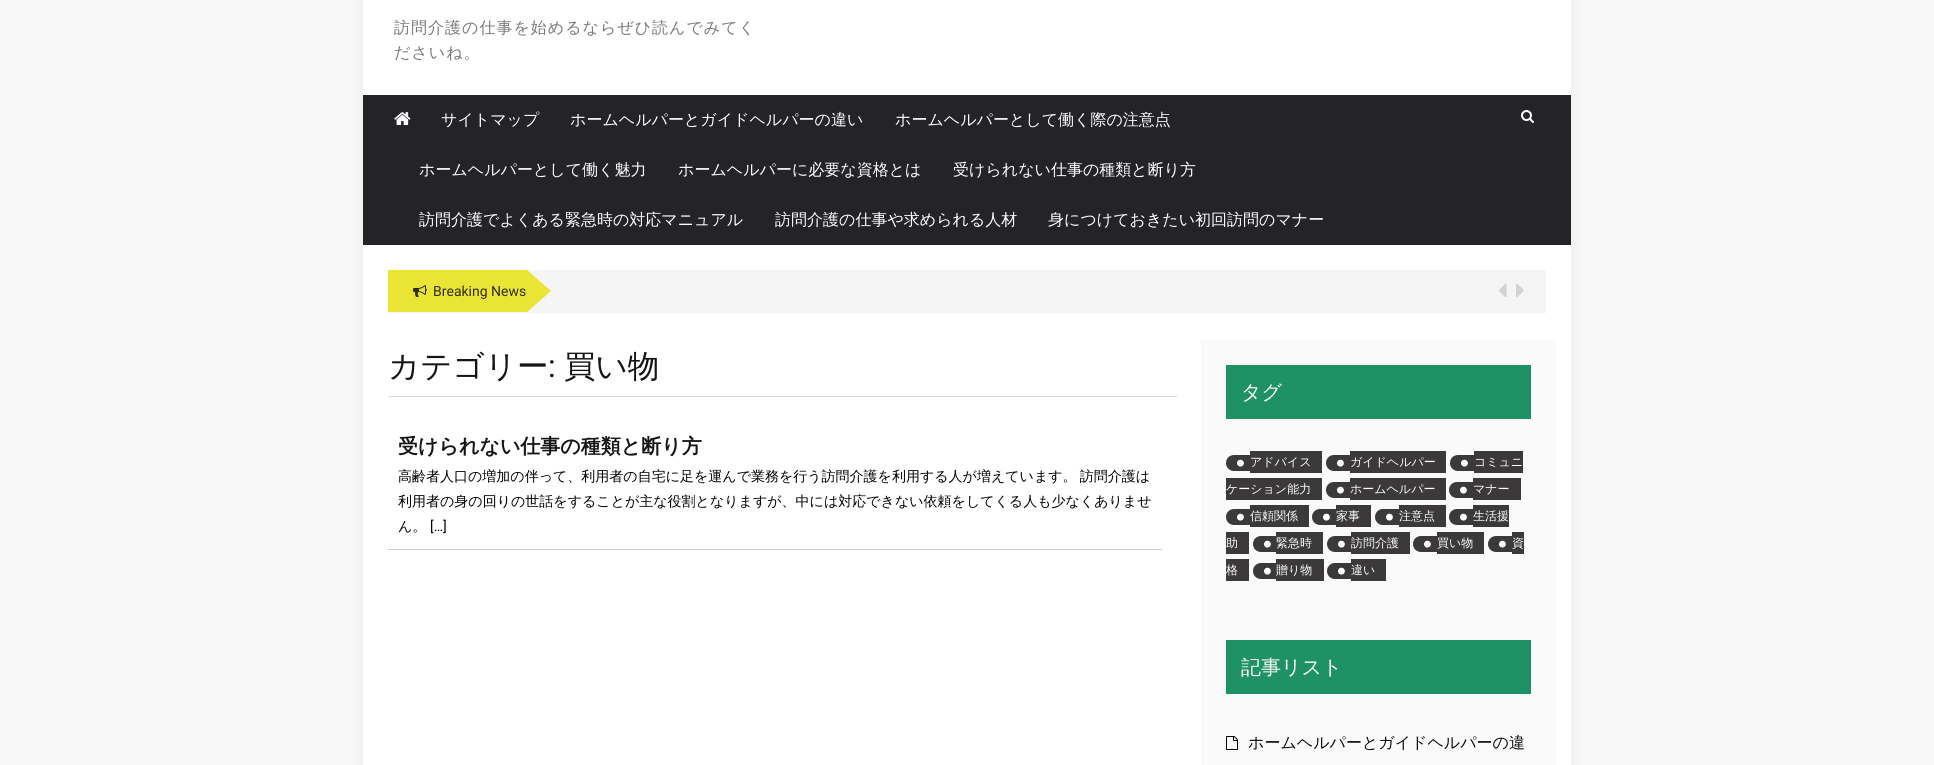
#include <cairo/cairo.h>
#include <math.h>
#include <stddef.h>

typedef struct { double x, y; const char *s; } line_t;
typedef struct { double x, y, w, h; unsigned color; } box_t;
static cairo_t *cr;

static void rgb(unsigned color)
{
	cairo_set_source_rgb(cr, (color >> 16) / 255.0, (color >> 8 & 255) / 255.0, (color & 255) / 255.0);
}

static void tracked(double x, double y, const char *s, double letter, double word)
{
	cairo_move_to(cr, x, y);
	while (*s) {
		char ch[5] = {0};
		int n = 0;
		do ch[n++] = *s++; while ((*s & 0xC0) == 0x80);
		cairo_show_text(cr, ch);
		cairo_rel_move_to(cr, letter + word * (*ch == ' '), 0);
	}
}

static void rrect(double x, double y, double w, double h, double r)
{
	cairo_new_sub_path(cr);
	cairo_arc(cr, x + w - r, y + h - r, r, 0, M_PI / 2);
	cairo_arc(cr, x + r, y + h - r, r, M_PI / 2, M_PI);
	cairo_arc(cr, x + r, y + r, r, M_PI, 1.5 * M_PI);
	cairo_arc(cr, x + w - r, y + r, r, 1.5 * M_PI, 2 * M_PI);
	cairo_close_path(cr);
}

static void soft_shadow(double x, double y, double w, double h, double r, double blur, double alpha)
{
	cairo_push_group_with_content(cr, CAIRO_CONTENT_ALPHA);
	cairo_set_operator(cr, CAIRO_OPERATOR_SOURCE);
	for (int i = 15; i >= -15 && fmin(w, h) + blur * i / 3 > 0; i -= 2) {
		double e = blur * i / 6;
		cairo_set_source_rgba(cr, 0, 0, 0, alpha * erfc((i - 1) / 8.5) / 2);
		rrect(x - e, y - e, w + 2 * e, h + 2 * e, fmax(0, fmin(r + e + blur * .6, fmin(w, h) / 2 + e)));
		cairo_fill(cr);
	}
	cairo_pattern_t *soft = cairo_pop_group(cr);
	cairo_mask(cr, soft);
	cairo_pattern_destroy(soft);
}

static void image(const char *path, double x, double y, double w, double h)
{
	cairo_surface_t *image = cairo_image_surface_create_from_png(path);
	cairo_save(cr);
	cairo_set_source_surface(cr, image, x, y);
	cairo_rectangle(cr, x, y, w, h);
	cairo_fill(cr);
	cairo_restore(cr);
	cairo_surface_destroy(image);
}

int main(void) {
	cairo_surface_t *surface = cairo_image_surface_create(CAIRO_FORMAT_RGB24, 1934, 765);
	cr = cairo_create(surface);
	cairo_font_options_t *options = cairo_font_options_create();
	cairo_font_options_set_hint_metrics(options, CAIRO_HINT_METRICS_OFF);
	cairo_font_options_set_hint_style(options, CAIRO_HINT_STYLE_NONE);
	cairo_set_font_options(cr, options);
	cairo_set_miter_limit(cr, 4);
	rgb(0xf8f8f8);
	cairo_paint(cr);
	rgb(0x000000);
	soft_shadow(365, -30, 1204, 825, 0, 10, 0.07);
	rgb(0xffffff);
	cairo_rectangle(cr, 363, 0, 1208, 765);
	cairo_fill(cr);
	rgb(0x242328);
	cairo_rectangle(cr, 363, 95, 1208, 150);
	cairo_fill(cr);
	image("img/1.png", 394, 112, 17, 13);
	image("img/2.png", 1521, 110, 13, 13);
	rgb(0xf5f5f5);
	cairo_rectangle(cr, 388, 270, 1158, 43);
	cairo_fill(cr);
	rgb(0xeae434);
	cairo_new_path(cr);
	cairo_move_to(cr, 388, 270);
	cairo_line_to(cr, 388, 312);
	cairo_line_to(cr, 527, 312);
	cairo_line_to(cr, 551, 291);
	cairo_line_to(cr, 527, 270);
	cairo_close_path(cr);
	cairo_fill(cr);
	image("img/3.png", 413, 285, 14, 12);
	image("img/4.png", 1499, 283, 8, 15);
	image("img/5.png", 1516, 283, 8, 15);
	{
		static const box_t items[] = {
			{388, 396, 789, 1, 0xd9d9d9},
			{388, 549, 774, 1, 0xcccccc},
			{1201, 340, 355, 425, 0xfbfafa},
			{1226, 365, 305, 54, 0x1e9265},
		};
		for (size_t i = 0; i < sizeof items / sizeof *items; i++) {
			rgb(items[i].color);
			cairo_rectangle(cr, items[i].x, items[i].y, items[i].w, items[i].h);
			cairo_fill(cr);
		}
	}
	rgb(0x3b3939);
	cairo_new_path(cr);
	cairo_move_to(cr, 1234, 455);
	cairo_line_to(cr, 1250, 455);
	cairo_line_to(cr, 1250, 471);
	cairo_line_to(cr, 1234, 471);
	cairo_curve_to(cr, 1229.5, 471, 1226, 467.5, 1226, 463);
	cairo_curve_to(cr, 1226, 458.5, 1229.5, 455, 1234, 455);
	cairo_close_path(cr);
	cairo_fill(cr);
	image("img/6.png", 1237, 459, 7, 8);
	cairo_rectangle(cr, 1250, 451, 72, 22);
	cairo_fill(cr);
	cairo_new_path(cr);
	cairo_move_to(cr, 1334, 455);
	cairo_line_to(cr, 1350, 455);
	cairo_line_to(cr, 1350, 471);
	cairo_line_to(cr, 1334, 471);
	cairo_curve_to(cr, 1329.5, 471, 1326, 467.5, 1326, 463);
	cairo_curve_to(cr, 1326, 458.5, 1329.5, 455, 1334, 455);
	cairo_close_path(cr);
	cairo_fill(cr);
	image("img/6.png", 1337, 459, 7, 8);
	cairo_rectangle(cr, 1350, 451, 96, 22);
	cairo_fill(cr);
	cairo_new_path(cr);
	cairo_move_to(cr, 1458, 455);
	cairo_line_to(cr, 1474, 455);
	cairo_line_to(cr, 1474, 471);
	cairo_line_to(cr, 1458, 471);
	cairo_curve_to(cr, 1453.5, 471, 1450, 467.5, 1450, 463);
	cairo_curve_to(cr, 1450, 458.5, 1453.5, 455, 1458, 455);
	cairo_close_path(cr);
	cairo_fill(cr);
	image("img/6.png", 1461, 459, 7, 8);
	cairo_rectangle(cr, 1474, 451, 49, 22);
	cairo_fill(cr);
	cairo_rectangle(cr, 1226, 478, 96, 22);
	cairo_fill(cr);
	cairo_new_path(cr);
	cairo_move_to(cr, 1334, 482);
	cairo_line_to(cr, 1350, 482);
	cairo_line_to(cr, 1350, 498);
	cairo_line_to(cr, 1334, 498);
	cairo_curve_to(cr, 1329.5, 498, 1326, 494.5, 1326, 490);
	cairo_curve_to(cr, 1326, 485.5, 1329.5, 482, 1334, 482);
	cairo_close_path(cr);
	cairo_fill(cr);
	image("img/6.png", 1337, 486, 7, 8);
	cairo_rectangle(cr, 1350, 478, 96, 22);
	cairo_fill(cr);
	cairo_new_path(cr);
	cairo_move_to(cr, 1457, 482);
	cairo_line_to(cr, 1473, 482);
	cairo_line_to(cr, 1473, 498);
	cairo_line_to(cr, 1457, 498);
	cairo_curve_to(cr, 1452.5, 498, 1449, 494.5, 1449, 490);
	cairo_curve_to(cr, 1449, 485.5, 1452.5, 482, 1457, 482);
	cairo_close_path(cr);
	cairo_fill(cr);
	image("img/6.png", 1460, 486, 7, 8);
	cairo_rectangle(cr, 1473, 478, 48, 22);
	cairo_fill(cr);
	cairo_new_path(cr);
	cairo_move_to(cr, 1234, 509);
	cairo_line_to(cr, 1250, 509);
	cairo_line_to(cr, 1250, 525);
	cairo_line_to(cr, 1234, 525);
	cairo_curve_to(cr, 1229.5, 525, 1226, 521.5, 1226, 517);
	cairo_curve_to(cr, 1226, 512.5, 1229.5, 509, 1234, 509);
	cairo_close_path(cr);
	cairo_fill(cr);
	image("img/6.png", 1237, 513, 7, 8);
	cairo_rectangle(cr, 1250, 505, 59, 22);
	cairo_fill(cr);
	cairo_new_path(cr);
	cairo_move_to(cr, 1320, 509);
	cairo_line_to(cr, 1336, 509);
	cairo_line_to(cr, 1336, 525);
	cairo_line_to(cr, 1320, 525);
	cairo_curve_to(cr, 1315.5, 525, 1312, 521.5, 1312, 517);
	cairo_curve_to(cr, 1312, 512.5, 1315.5, 509, 1320, 509);
	cairo_close_path(cr);
	cairo_fill(cr);
	image("img/6.png", 1323, 513, 7, 8);
	cairo_rectangle(cr, 1336, 505, 35, 22);
	cairo_fill(cr);
	cairo_new_path(cr);
	cairo_move_to(cr, 1383, 509);
	cairo_line_to(cr, 1399, 509);
	cairo_line_to(cr, 1399, 525);
	cairo_line_to(cr, 1383, 525);
	cairo_curve_to(cr, 1378.5, 525, 1375, 521.5, 1375, 517);
	cairo_curve_to(cr, 1375, 512.5, 1378.5, 509, 1383, 509);
	cairo_close_path(cr);
	cairo_fill(cr);
	image("img/6.png", 1386, 513, 7, 8);
	cairo_rectangle(cr, 1399, 505, 47, 22);
	cairo_fill(cr);
	cairo_new_path(cr);
	cairo_move_to(cr, 1457, 509);
	cairo_line_to(cr, 1473, 509);
	cairo_line_to(cr, 1473, 525);
	cairo_line_to(cr, 1457, 525);
	cairo_curve_to(cr, 1452.5, 525, 1449, 521.5, 1449, 517);
	cairo_curve_to(cr, 1449, 512.5, 1452.5, 509, 1457, 509);
	cairo_close_path(cr);
	cairo_fill(cr);
	image("img/6.png", 1460, 513, 7, 8);
	cairo_rectangle(cr, 1473, 505, 36, 22);
	cairo_fill(cr);
	cairo_rectangle(cr, 1226, 532, 23, 22);
	cairo_fill(cr);
	cairo_new_path(cr);
	cairo_move_to(cr, 1261, 536);
	cairo_line_to(cr, 1276, 536);
	cairo_line_to(cr, 1276, 552);
	cairo_line_to(cr, 1261, 552);
	cairo_curve_to(cr, 1256.5, 552, 1253, 548.5, 1253, 544);
	cairo_curve_to(cr, 1253, 539.5, 1256.5, 536, 1261, 536);
	cairo_close_path(cr);
	cairo_fill(cr);
	image("img/6.png", 1264, 540, 7, 8);
	cairo_rectangle(cr, 1276, 532, 47, 22);
	cairo_fill(cr);
	cairo_new_path(cr);
	cairo_move_to(cr, 1335, 536);
	cairo_line_to(cr, 1351, 536);
	cairo_line_to(cr, 1351, 552);
	cairo_line_to(cr, 1335, 552);
	cairo_curve_to(cr, 1330.5, 552, 1327, 548.5, 1327, 544);
	cairo_curve_to(cr, 1327, 539.5, 1330.5, 536, 1335, 536);
	cairo_close_path(cr);
	cairo_fill(cr);
	image("img/6.png", 1338, 540, 7, 8);
	cairo_rectangle(cr, 1351, 532, 59, 22);
	cairo_fill(cr);
	cairo_new_path(cr);
	cairo_move_to(cr, 1421, 536);
	cairo_line_to(cr, 1437, 536);
	cairo_line_to(cr, 1437, 552);
	cairo_line_to(cr, 1421, 552);
	cairo_curve_to(cr, 1416.5, 552, 1413, 548.5, 1413, 544);
	cairo_curve_to(cr, 1413, 539.5, 1416.5, 536, 1421, 536);
	cairo_close_path(cr);
	cairo_fill(cr);
	image("img/6.png", 1424, 540, 7, 8);
	cairo_rectangle(cr, 1437, 532, 47, 22);
	cairo_fill(cr);
	cairo_new_path(cr);
	cairo_move_to(cr, 1496, 536);
	cairo_line_to(cr, 1512, 536);
	cairo_line_to(cr, 1512, 552);
	cairo_line_to(cr, 1496, 552);
	cairo_curve_to(cr, 1491.5, 552, 1488, 548.5, 1488, 544);
	cairo_curve_to(cr, 1488, 539.5, 1491.5, 536, 1496, 536);
	cairo_close_path(cr);
	cairo_fill(cr);
	image("img/6.png", 1499, 540, 7, 8);
	cairo_rectangle(cr, 1512, 532, 12, 22);
	cairo_fill(cr);
	cairo_rectangle(cr, 1226, 559, 23, 22);
	cairo_fill(cr);
	cairo_new_path(cr);
	cairo_move_to(cr, 1261, 563);
	cairo_line_to(cr, 1276, 563);
	cairo_line_to(cr, 1276, 579);
	cairo_line_to(cr, 1261, 579);
	cairo_curve_to(cr, 1256.5, 579, 1253, 575.5, 1253, 571);
	cairo_curve_to(cr, 1253, 566.5, 1256.5, 563, 1261, 563);
	cairo_close_path(cr);
	cairo_fill(cr);
	image("img/6.png", 1264, 567, 7, 8);
	cairo_rectangle(cr, 1276, 559, 48, 22);
	cairo_fill(cr);
	cairo_new_path(cr);
	cairo_move_to(cr, 1335, 563);
	cairo_line_to(cr, 1351, 563);
	cairo_line_to(cr, 1351, 579);
	cairo_line_to(cr, 1335, 579);
	cairo_curve_to(cr, 1330.5, 579, 1327, 575.5, 1327, 571);
	cairo_curve_to(cr, 1327, 566.5, 1330.5, 563, 1335, 563);
	cairo_close_path(cr);
	cairo_fill(cr);
	image("img/6.png", 1338, 567, 7, 8);
	cairo_rectangle(cr, 1351, 559, 35, 22);
	cairo_fill(cr);
	rgb(0x1e9265);
	cairo_rectangle(cr, 1226, 640, 305, 54);
	cairo_fill(cr);
	image("img/7.png", 1226, 736, 12, 14);
	cairo_select_font_face(cr, "WenQuanYi Zen Hei Medium", CAIRO_FONT_SLANT_NORMAL, CAIRO_FONT_WEIGHT_NORMAL);
	cairo_set_font_size(cr, 16);
	rgb(0x797979);
	tracked(394, 33, "訪問介護の仕事を始めるならぜひ読んでみてく", 1, 0);
	tracked(394, 58, "ださいね。", 1, 0);
	rgb(0xffffff);
	{
		static const line_t items[] = {
			{441, 125, "サイトマップ"},
			{570, 125, "ホームヘルパーとガイドヘルパーの違い"},
			{895, 125, "ホームヘルパーとして働く際の注意点"},
			{419, 175, "ホームヘルパーとして働く魅力"},
			{678, 175, "ホームヘルパーに必要な資格とは"},
			{953, 175, "受けられない仕事の種類と断り方"},
			{419, 225, "訪問介護でよくある緊急時の対応マニュアル"},
			{775, 225, "訪問介護の仕事や求められる人材"},
			{1048, 225, "身につけておきたい初回訪問のマナー"},
		};
		for (size_t i = 0; i < sizeof items / sizeof *items; i++) {
			cairo_move_to(cr, items[i].x, items[i].y);
			cairo_show_text(cr, items[i].s);
		}
	}
	cairo_select_font_face(cr, "Roboto", CAIRO_FONT_SLANT_NORMAL, CAIRO_FONT_WEIGHT_NORMAL);
	cairo_set_font_size(cr, 14);
	rgb(0x2f2e0a);
	cairo_move_to(cr, 433, 296);
	cairo_show_text(cr, "Breaking News");
	cairo_select_font_face(cr, "WenQuanYi Zen Hei Medium", CAIRO_FONT_SLANT_NORMAL, CAIRO_FONT_WEIGHT_NORMAL);
	cairo_set_font_size(cr, 31.5);
	rgb(0x151515);
	cairo_move_to(cr, 388, 377);
	cairo_show_text(cr, "カテゴリー");
	cairo_select_font_face(cr, "Roboto", CAIRO_FONT_SLANT_NORMAL, CAIRO_FONT_WEIGHT_NORMAL);
	cairo_move_to(cr, 548, 377);
	cairo_show_text(cr, ":");
	cairo_select_font_face(cr, "WenQuanYi Zen Hei Medium", CAIRO_FONT_SLANT_NORMAL, CAIRO_FONT_WEIGHT_NORMAL);
	cairo_move_to(cr, 564, 377);
	cairo_show_text(cr, "買い物");
	cairo_select_font_face(cr, "WenQuanYi Zen Hei", CAIRO_FONT_SLANT_NORMAL, CAIRO_FONT_WEIGHT_BOLD);
	cairo_set_font_size(cr, 20);
	cairo_move_to(cr, 398, 453);
	cairo_show_text(cr, "受けられない仕事の種類と断り方");
	cairo_select_font_face(cr, "WenQuanYi Zen Hei Medium", CAIRO_FONT_SLANT_NORMAL, CAIRO_FONT_WEIGHT_NORMAL);
	cairo_set_font_size(cr, 14);
	rgb(0x000000);
	tracked(398, 481, "高齢者人口の増加の伴って、利用者の自宅に足を運んで業務を行う訪問介護を利用する人が増えています。 訪問介護は", 0, -1);
	cairo_move_to(cr, 398, 506);
	cairo_show_text(cr, "利用者の身の回りの世話をすることが主な役割となりますが、中には対応できない依頼をしてくる人も少なくありませ");
	cairo_move_to(cr, 398, 531);
	cairo_show_text(cr, "ん。");
	cairo_select_font_face(cr, "Roboto", CAIRO_FONT_SLANT_NORMAL, CAIRO_FONT_WEIGHT_NORMAL);
	cairo_move_to(cr, 430, 531);
	cairo_show_text(cr, "[…]");
	cairo_select_font_face(cr, "WenQuanYi Zen Hei Medium", CAIRO_FONT_SLANT_NORMAL, CAIRO_FONT_WEIGHT_NORMAL);
	cairo_set_font_size(cr, 20);
	rgb(0xffffff);
	cairo_move_to(cr, 1241, 399);
	cairo_show_text(cr, "タグ");
	cairo_set_font_size(cr, 12);
	{
		static const line_t items[] = {
			{1250, 466, "アドバイス"},
			{1350, 466, "ガイドヘルパー"},
			{1474, 466, "コミュニ"},
			{1226, 493, "ケーション能力"},
			{1350, 493, "ホームヘルパー"},
			{1473, 493, "マナー"},
			{1250, 520, "信頼関係"},
			{1336, 520, "家事"},
			{1399, 520, "注意点"},
			{1473, 520, "生活援"},
			{1226, 547, "助"},
			{1276, 547, "緊急時"},
			{1351, 547, "訪問介護"},
			{1437, 547, "買い物"},
			{1512, 547, "資"},
			{1226, 574, "格"},
			{1276, 574, "贈り物"},
			{1351, 574, "違い"},
		};
		for (size_t i = 0; i < sizeof items / sizeof *items; i++) {
			cairo_move_to(cr, items[i].x, items[i].y);
			cairo_show_text(cr, items[i].s);
		}
	}
	cairo_set_font_size(cr, 20);
	cairo_move_to(cr, 1241, 674);
	cairo_show_text(cr, "記事リスト");
	cairo_set_font_size(cr, 16);
	rgb(0x0c0c0c);
	cairo_move_to(cr, 1248, 748);
	cairo_show_text(cr, "ホームヘルパーとガイドヘルパーの違");
	cairo_surface_write_to_png(surface, "page.png");
	cairo_font_options_destroy(options);
	cairo_destroy(cr);
	cairo_surface_destroy(surface);
	return 0;
}
